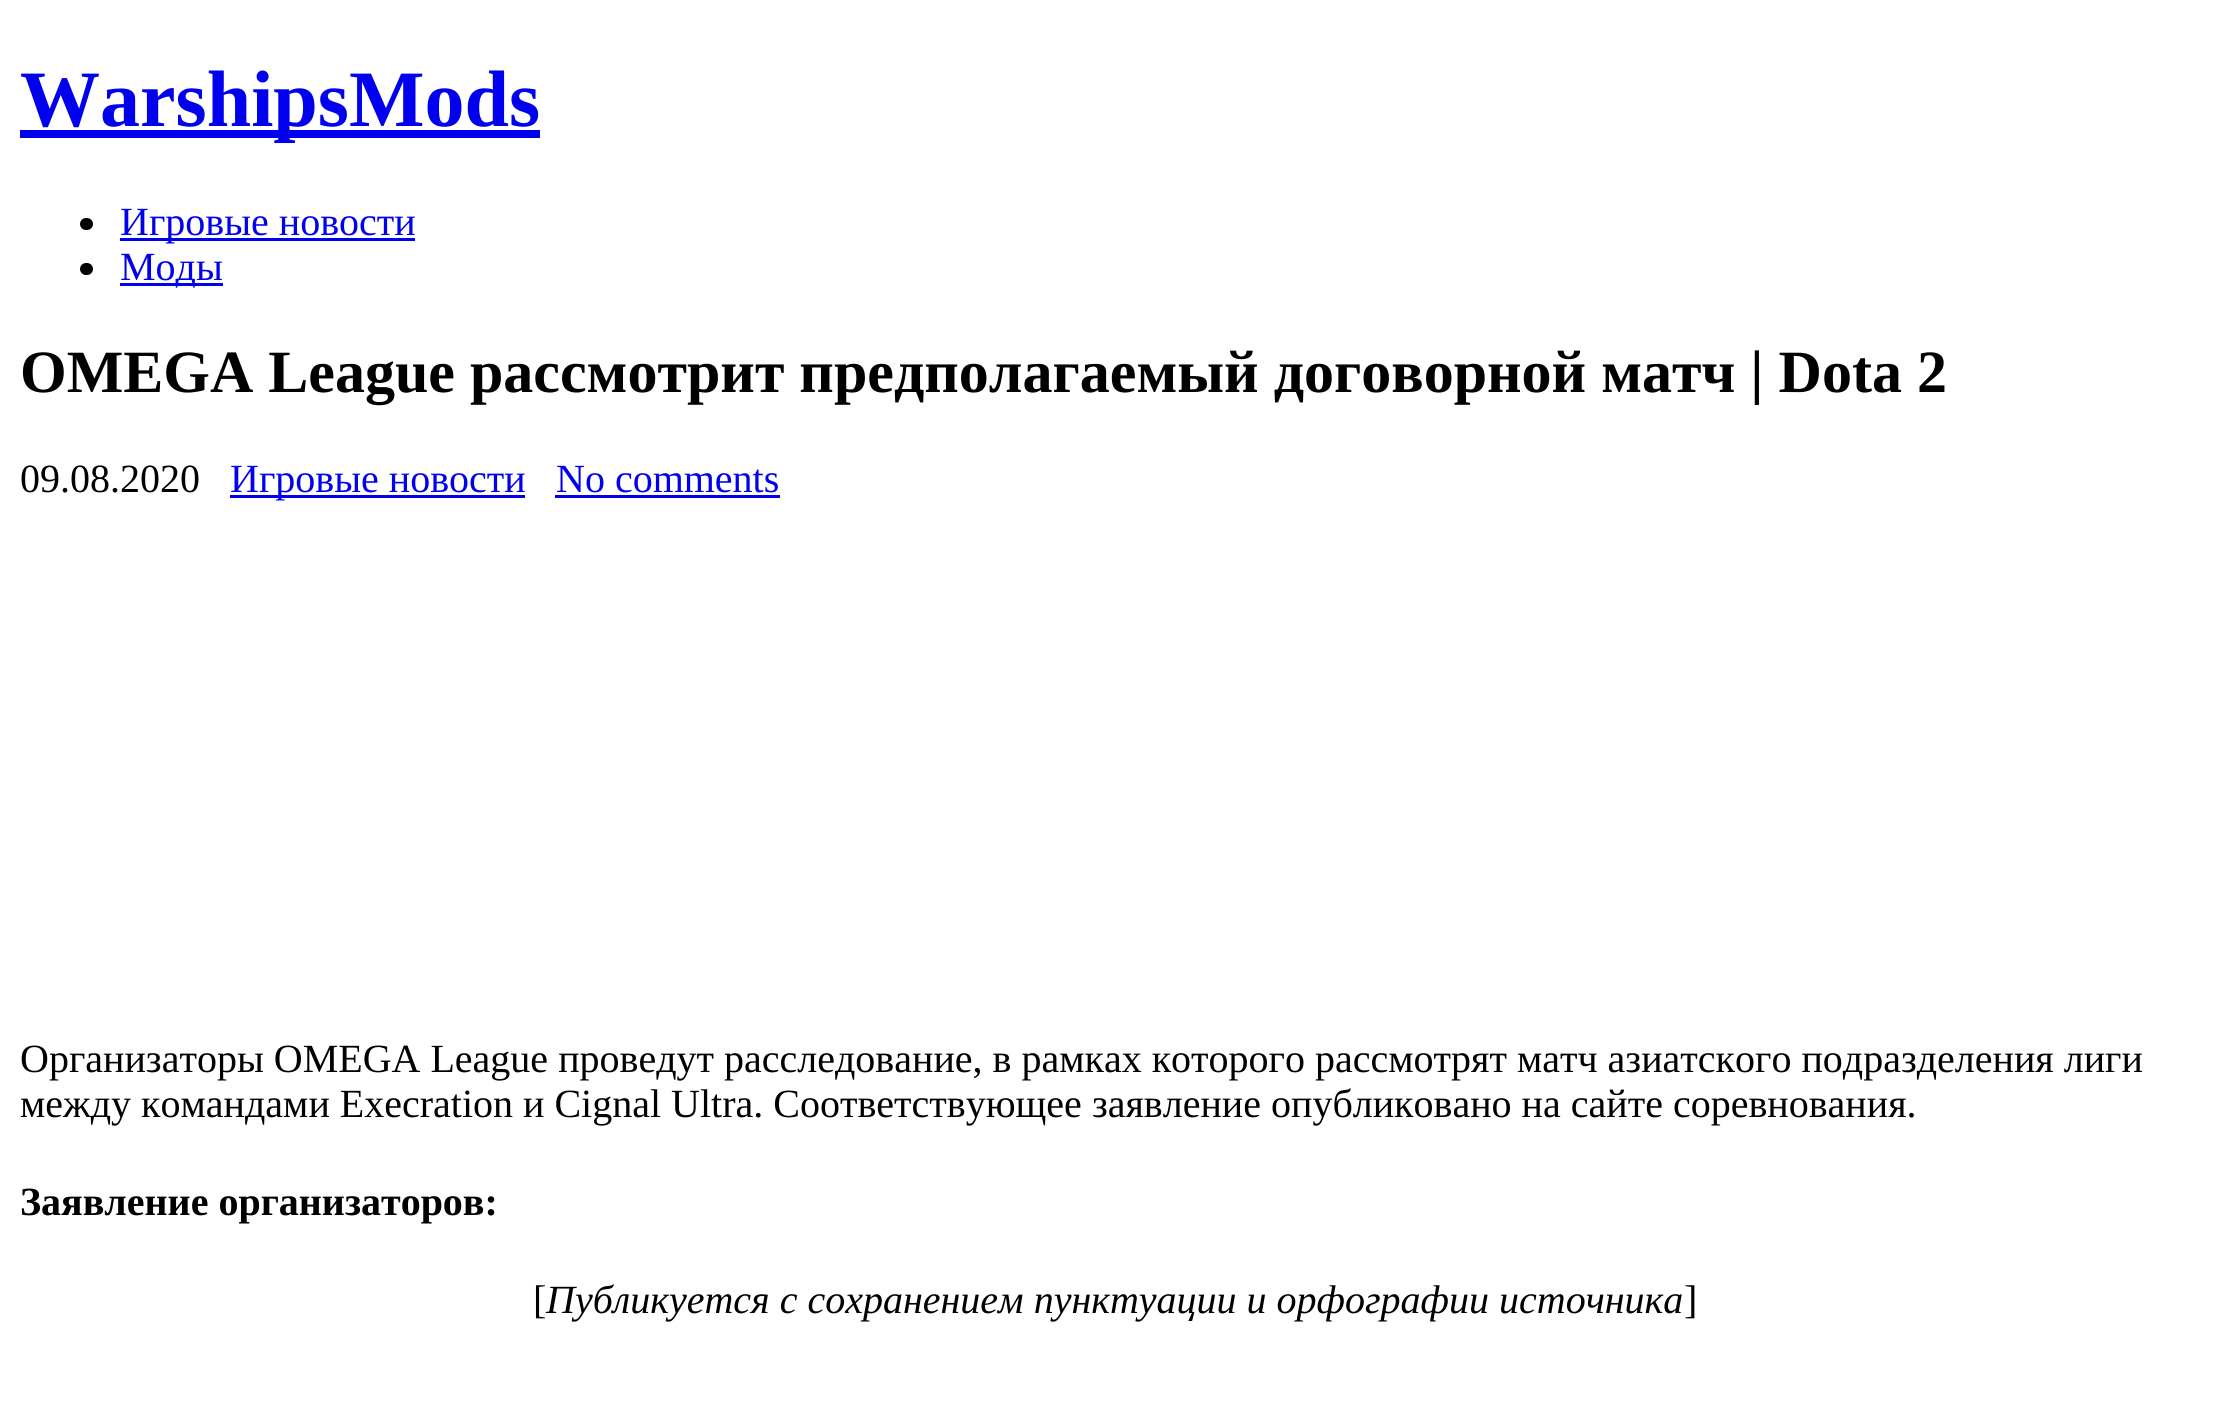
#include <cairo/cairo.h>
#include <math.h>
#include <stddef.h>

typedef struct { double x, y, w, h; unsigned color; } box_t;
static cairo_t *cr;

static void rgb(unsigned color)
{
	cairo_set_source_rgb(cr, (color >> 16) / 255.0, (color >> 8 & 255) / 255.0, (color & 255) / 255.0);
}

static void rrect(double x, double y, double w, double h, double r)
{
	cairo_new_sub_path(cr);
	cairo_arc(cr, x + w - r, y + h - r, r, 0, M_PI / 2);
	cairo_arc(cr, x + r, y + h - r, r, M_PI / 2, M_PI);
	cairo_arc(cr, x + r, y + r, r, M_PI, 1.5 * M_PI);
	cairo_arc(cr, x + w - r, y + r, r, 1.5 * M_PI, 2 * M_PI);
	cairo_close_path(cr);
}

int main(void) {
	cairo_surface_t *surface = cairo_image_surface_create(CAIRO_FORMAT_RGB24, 2230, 1416);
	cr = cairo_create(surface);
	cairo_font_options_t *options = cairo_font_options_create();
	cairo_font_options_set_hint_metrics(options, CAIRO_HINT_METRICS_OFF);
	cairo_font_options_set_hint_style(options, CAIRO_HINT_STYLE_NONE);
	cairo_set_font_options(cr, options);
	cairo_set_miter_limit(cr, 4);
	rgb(0xffffff);
	cairo_paint(cr);
	rgb(0x0000ee);
	cairo_rectangle(cr, 20, 130, 520, 8);
	cairo_fill(cr);
	rgb(0x000000);
	rrect(80, 218, 13, 12, 6);
	cairo_fill(cr);
	rgb(0x0000ee);
	cairo_rectangle(cr, 120, 238, 295, 3);
	cairo_fill(cr);
	rgb(0x000000);
	rrect(80, 263, 13, 12, 6);
	cairo_fill(cr);
	{
		static const box_t items[] = {
			{120, 283, 103, 3, 0x0000ee},
			{230, 495, 295, 3, 0x0000ee},
			{555, 495, 225, 3, 0x0000ee},
		};
		for (size_t i = 0; i < sizeof items / sizeof *items; i++) {
			rgb(items[i].color);
			cairo_rectangle(cr, items[i].x, items[i].y, items[i].w, items[i].h);
			cairo_fill(cr);
		}
	}
	cairo_select_font_face(cr, "Liberation Serif", CAIRO_FONT_SLANT_NORMAL, CAIRO_FONT_WEIGHT_BOLD);
	cairo_set_font_size(cr, 80);
	cairo_move_to(cr, 20, 126);
	cairo_show_text(cr, "WarshipsMods");
	cairo_select_font_face(cr, "Liberation Serif", CAIRO_FONT_SLANT_NORMAL, CAIRO_FONT_WEIGHT_NORMAL);
	cairo_set_font_size(cr, 40);
	cairo_move_to(cr, 120, 235);
	cairo_show_text(cr, "Игровые новости");
	cairo_move_to(cr, 120, 280);
	cairo_show_text(cr, "Моды");
	cairo_select_font_face(cr, "Liberation Serif", CAIRO_FONT_SLANT_NORMAL, CAIRO_FONT_WEIGHT_BOLD);
	cairo_set_font_size(cr, 60);
	rgb(0x000000);
	cairo_move_to(cr, 20, 392);
	cairo_show_text(cr, "OMEGA League рассмотрит предполагаемый договорной матч | Dota 2");
	cairo_select_font_face(cr, "Liberation Serif", CAIRO_FONT_SLANT_NORMAL, CAIRO_FONT_WEIGHT_NORMAL);
	cairo_set_font_size(cr, 40);
	cairo_move_to(cr, 20, 492);
	cairo_show_text(cr, "09.08.2020");
	rgb(0x0000ee);
	cairo_move_to(cr, 230, 492);
	cairo_show_text(cr, "Игровые новости");
	cairo_move_to(cr, 556, 492);
	cairo_show_text(cr, "No comments");
	rgb(0x000000);
	cairo_move_to(cr, 20, 1072);
	cairo_show_text(cr, "Организаторы OMEGA League проведут расследование, в рамках которого рассмотрят матч азиатского подразделения лиги");
	cairo_move_to(cr, 20, 1117);
	cairo_show_text(cr, "между командами Execration и Cignal Ultra. Соответствующее заявление опубликовано на сайте соревнования.");
	cairo_select_font_face(cr, "Liberation Serif", CAIRO_FONT_SLANT_NORMAL, CAIRO_FONT_WEIGHT_BOLD);
	cairo_move_to(cr, 20, 1215);
	cairo_show_text(cr, "Заявление организаторов:");
	cairo_select_font_face(cr, "Liberation Serif", CAIRO_FONT_SLANT_NORMAL, CAIRO_FONT_WEIGHT_NORMAL);
	cairo_move_to(cr, 533, 1313);
	cairo_show_text(cr, "[");
	cairo_select_font_face(cr, "Liberation Serif", CAIRO_FONT_SLANT_ITALIC, CAIRO_FONT_WEIGHT_NORMAL);
	cairo_move_to(cr, 546, 1313);
	cairo_show_text(cr, "Публикуется с сохранением пунктуации и орфографии источника");
	cairo_select_font_face(cr, "Liberation Serif", CAIRO_FONT_SLANT_NORMAL, CAIRO_FONT_WEIGHT_NORMAL);
	cairo_move_to(cr, 1684, 1313);
	cairo_show_text(cr, "]");
	cairo_surface_write_to_png(surface, "page.png");
	cairo_font_options_destroy(options);
	cairo_destroy(cr);
	cairo_surface_destroy(surface);
	return 0;
}
